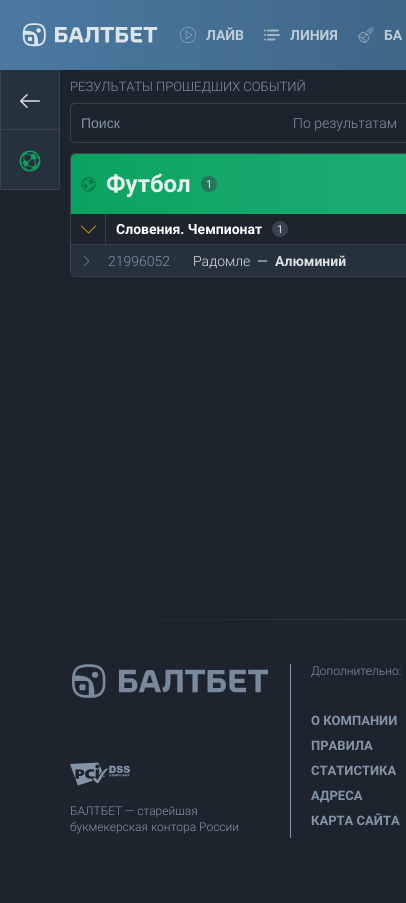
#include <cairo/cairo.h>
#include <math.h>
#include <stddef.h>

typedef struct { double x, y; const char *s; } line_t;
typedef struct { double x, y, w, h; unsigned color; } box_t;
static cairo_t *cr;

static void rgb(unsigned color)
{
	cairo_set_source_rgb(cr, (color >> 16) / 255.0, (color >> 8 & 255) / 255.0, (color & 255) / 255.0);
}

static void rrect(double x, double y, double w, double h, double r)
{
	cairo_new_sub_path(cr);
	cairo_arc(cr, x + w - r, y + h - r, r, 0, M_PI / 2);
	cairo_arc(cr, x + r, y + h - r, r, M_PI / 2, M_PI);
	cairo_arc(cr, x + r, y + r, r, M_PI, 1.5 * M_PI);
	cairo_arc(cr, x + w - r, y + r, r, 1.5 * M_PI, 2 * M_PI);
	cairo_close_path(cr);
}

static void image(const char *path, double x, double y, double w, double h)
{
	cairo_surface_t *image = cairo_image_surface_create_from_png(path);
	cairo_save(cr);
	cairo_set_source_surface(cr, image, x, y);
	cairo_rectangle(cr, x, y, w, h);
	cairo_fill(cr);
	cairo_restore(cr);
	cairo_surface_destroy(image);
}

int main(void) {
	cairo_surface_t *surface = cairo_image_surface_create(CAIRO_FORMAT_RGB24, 406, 903);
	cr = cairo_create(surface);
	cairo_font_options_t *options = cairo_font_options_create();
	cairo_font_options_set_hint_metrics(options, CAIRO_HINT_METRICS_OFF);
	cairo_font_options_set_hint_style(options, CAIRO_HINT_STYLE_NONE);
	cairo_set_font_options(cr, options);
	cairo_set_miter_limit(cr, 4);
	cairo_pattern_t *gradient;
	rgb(0x1d242e);
	cairo_paint(cr);
	gradient = cairo_pattern_create_linear(0, 35, 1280, 35);
	cairo_pattern_add_color_stop_rgba(gradient, 0, 0.294, 0.475, 0.631, 1);
	cairo_pattern_add_color_stop_rgba(gradient, 1, 0.157, 0.243, 0.318, 1);
	cairo_set_source(cr, gradient);
	cairo_pattern_destroy(gradient);
	cairo_rectangle(cr, 0, 0, 406, 70);
	cairo_fill(cr);
	image("img/1.png", 22, 23, 136, 24);
	image("img/2.png", 180, 27, 16, 16);
	image("img/3.png", 264, 29, 16, 12);
	image("img/4.png", 358, 27, 16, 16);
	{
		static const box_t items[] = {
			{1, 70, 58, 59, 0x25313d},
			{59, 70, 1, 120, 0x39434e},
			{0, 129, 60, 1, 0x39434e},
			{0, 70, 1, 60, 0x39434e},
		};
		for (size_t i = 0; i < sizeof items / sizeof *items; i++) {
			rgb(items[i].color);
			cairo_rectangle(cr, items[i].x, items[i].y, items[i].w, items[i].h);
			cairo_fill(cr);
		}
	}
	image("img/5.png", 20, 94, 20, 14);
	{
		static const box_t items[] = {
			{1, 130, 58, 59, 0x25313d},
			{0, 189, 60, 1, 0x39434e},
			{0, 130, 1, 60, 0x39434e},
		};
		for (size_t i = 0; i < sizeof items / sizeof *items; i++) {
			rgb(items[i].color);
			cairo_rectangle(cr, items[i].x, items[i].y, items[i].w, items[i].h);
			cairo_fill(cr);
		}
	}
	image("img/6.png", 19, 150, 22, 22);
	rrect(70.5, 103.5, 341, 39, 4.5);
	cairo_set_line_width(cr, 1);
	cairo_stroke(cr);
	rrect(70.5, 153.5, 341, 123, 4.5);
	cairo_stroke(cr);
	gradient = cairo_pattern_create_linear(71, 184, 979, 184);
	cairo_pattern_add_color_stop_rgba(gradient, 0, 0.043, 0.639, 0.376, 1);
	cairo_pattern_add_color_stop_rgba(gradient, 1, 0.235, 0.729, 0.573, 1);
	cairo_set_source(cr, gradient);
	cairo_pattern_destroy(gradient);
	cairo_new_path(cr);
	cairo_move_to(cr, 76, 154);
	cairo_line_to(cr, 406, 154);
	cairo_curve_to(cr, 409, 154, 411, 156, 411, 159);
	cairo_line_to(cr, 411, 214);
	cairo_line_to(cr, 71, 214);
	cairo_line_to(cr, 71, 159);
	cairo_curve_to(cr, 71, 156, 73, 154, 76, 154);
	cairo_close_path(cr);
	cairo_fill(cr);
	image("img/7.png", 81, 177, 15, 15);
	rgb(0x26755b);
	cairo_arc(cr, 209, 184, 8, 0, 2 * M_PI);
	cairo_fill(cr);
	rgb(0x39434e);
	cairo_rectangle(cr, 71, 244, 335, 1);
	cairo_fill(cr);
	cairo_rectangle(cr, 105, 214, 1, 30);
	cairo_fill(cr);
	image("img/8.png", 81, 225, 15, 9);
	cairo_arc(cr, 280, 229, 8, 0, 2 * M_PI);
	cairo_fill(cr);
	rgb(0x25313d);
	cairo_rectangle(cr, 71, 245, 335, 31);
	cairo_fill(cr);
	image("img/9.png", 83, 256, 6, 10);
	gradient = cairo_pattern_create_linear(70, 620, 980, 620);
	cairo_pattern_add_color_stop_rgba(gradient, 0, 0.114, 0.141, 0.18, 1);
	cairo_pattern_add_color_stop_rgba(gradient, 0.5, 0.224, 0.263, 0.306, 1);
	cairo_pattern_add_color_stop_rgba(gradient, 1, 0.114, 0.141, 0.18, 1);
	cairo_set_source(cr, gradient);
	cairo_pattern_destroy(gradient);
	cairo_rectangle(cr, 106, 619, 300, 1);
	cairo_fill(cr);
	rgb(0x8394a6);
	cairo_rectangle(cr, 290, 664, 1, 174);
	cairo_fill(cr);
	image("img/10.png", 72, 664, 196, 34);
	image("img/11.png", 70, 762, 60, 24);
	cairo_select_font_face(cr, "Roboto", CAIRO_FONT_SLANT_NORMAL, CAIRO_FONT_WEIGHT_BOLD);
	cairo_set_font_size(cr, 14);
	rgb(0xbeccd9);
	{
		static const line_t items[] = {
			{206, 40, "ЛАЙВ"},
			{290, 40, "ЛИНИЯ"},
			{384, 40, "БА"},
		};
		for (size_t i = 0; i < sizeof items / sizeof *items; i++) {
			cairo_move_to(cr, items[i].x, items[i].y);
			cairo_show_text(cr, items[i].s);
		}
	}
	cairo_select_font_face(cr, "Roboto Light", CAIRO_FONT_SLANT_NORMAL, CAIRO_FONT_WEIGHT_NORMAL);
	cairo_set_font_size(cr, 13);
	rgb(0x8394a6);
	cairo_move_to(cr, 70, 91);
	cairo_show_text(cr, "РЕЗУЛЬТАТЫ ПРОШЕДШИХ СОБЫТИЙ");
	cairo_select_font_face(cr, "Liberation Sans", CAIRO_FONT_SLANT_NORMAL, CAIRO_FONT_WEIGHT_NORMAL);
	cairo_set_font_size(cr, 14);
	cairo_move_to(cr, 81, 128);
	cairo_show_text(cr, "Поиск");
	cairo_select_font_face(cr, "Roboto Light", CAIRO_FONT_SLANT_NORMAL, CAIRO_FONT_WEIGHT_NORMAL);
	cairo_move_to(cr, 293, 128);
	cairo_show_text(cr, "По результатам");
	cairo_select_font_face(cr, "Roboto", CAIRO_FONT_SLANT_NORMAL, CAIRO_FONT_WEIGHT_BOLD);
	cairo_set_font_size(cr, 24);
	rgb(0xe7f6f0);
	cairo_move_to(cr, 106, 192);
	cairo_show_text(cr, "Футбол");
	cairo_select_font_face(cr, "Roboto", CAIRO_FONT_SLANT_NORMAL, CAIRO_FONT_WEIGHT_NORMAL);
	cairo_set_font_size(cr, 11);
	rgb(0xdfe0e1);
	cairo_move_to(cr, 206, 188);
	cairo_show_text(cr, "1");
	cairo_select_font_face(cr, "Roboto", CAIRO_FONT_SLANT_NORMAL, CAIRO_FONT_WEIGHT_BOLD);
	cairo_set_font_size(cr, 14);
	rgb(0xffffff);
	cairo_move_to(cr, 116, 234);
	cairo_show_text(cr, "Словения. Чемпионат");
	cairo_select_font_face(cr, "Roboto", CAIRO_FONT_SLANT_NORMAL, CAIRO_FONT_WEIGHT_NORMAL);
	cairo_set_font_size(cr, 11);
	rgb(0xdfe0e1);
	cairo_move_to(cr, 277, 233);
	cairo_show_text(cr, "1");
	cairo_select_font_face(cr, "Roboto Light", CAIRO_FONT_SLANT_NORMAL, CAIRO_FONT_WEIGHT_NORMAL);
	cairo_set_font_size(cr, 14);
	rgb(0x8394a6);
	cairo_move_to(cr, 108, 266);
	cairo_show_text(cr, "21996052");
	rgb(0xdfe0e1);
	cairo_move_to(cr, 193, 266);
	cairo_show_text(cr, "Радомле");
	cairo_select_font_face(cr, "Roboto", CAIRO_FONT_SLANT_NORMAL, CAIRO_FONT_WEIGHT_NORMAL);
	cairo_move_to(cr, 257, 266);
	cairo_show_text(cr, "—");
	cairo_select_font_face(cr, "Roboto", CAIRO_FONT_SLANT_NORMAL, CAIRO_FONT_WEIGHT_BOLD);
	cairo_move_to(cr, 275, 266);
	cairo_show_text(cr, "Алюминий");
	cairo_select_font_face(cr, "Roboto Light", CAIRO_FONT_SLANT_NORMAL, CAIRO_FONT_WEIGHT_NORMAL);
	cairo_set_font_size(cr, 12);
	rgb(0x8394a6);
	{
		static const line_t items[] = {
			{70, 815, "БАЛТБЕТ — старейшая"},
			{70, 831, "букмекерская контора России"},
			{311, 675, "Дополнительно:"},
		};
		for (size_t i = 0; i < sizeof items / sizeof *items; i++) {
			cairo_move_to(cr, items[i].x, items[i].y);
			cairo_show_text(cr, items[i].s);
		}
	}
	cairo_select_font_face(cr, "Roboto", CAIRO_FONT_SLANT_NORMAL, CAIRO_FONT_WEIGHT_BOLD);
	cairo_set_font_size(cr, 13);
	{
		static const line_t items[] = {
			{311, 725, "О КОМПАНИИ"},
			{311, 750, "ПРАВИЛА"},
			{311, 775, "СТАТИСТИКА"},
			{311, 800, "АДРЕСА"},
			{311, 825, "КАРТА САЙТА"},
		};
		for (size_t i = 0; i < sizeof items / sizeof *items; i++) {
			cairo_move_to(cr, items[i].x, items[i].y);
			cairo_show_text(cr, items[i].s);
		}
	}
	cairo_surface_write_to_png(surface, "page.png");
	cairo_font_options_destroy(options);
	cairo_destroy(cr);
	cairo_surface_destroy(surface);
	return 0;
}
